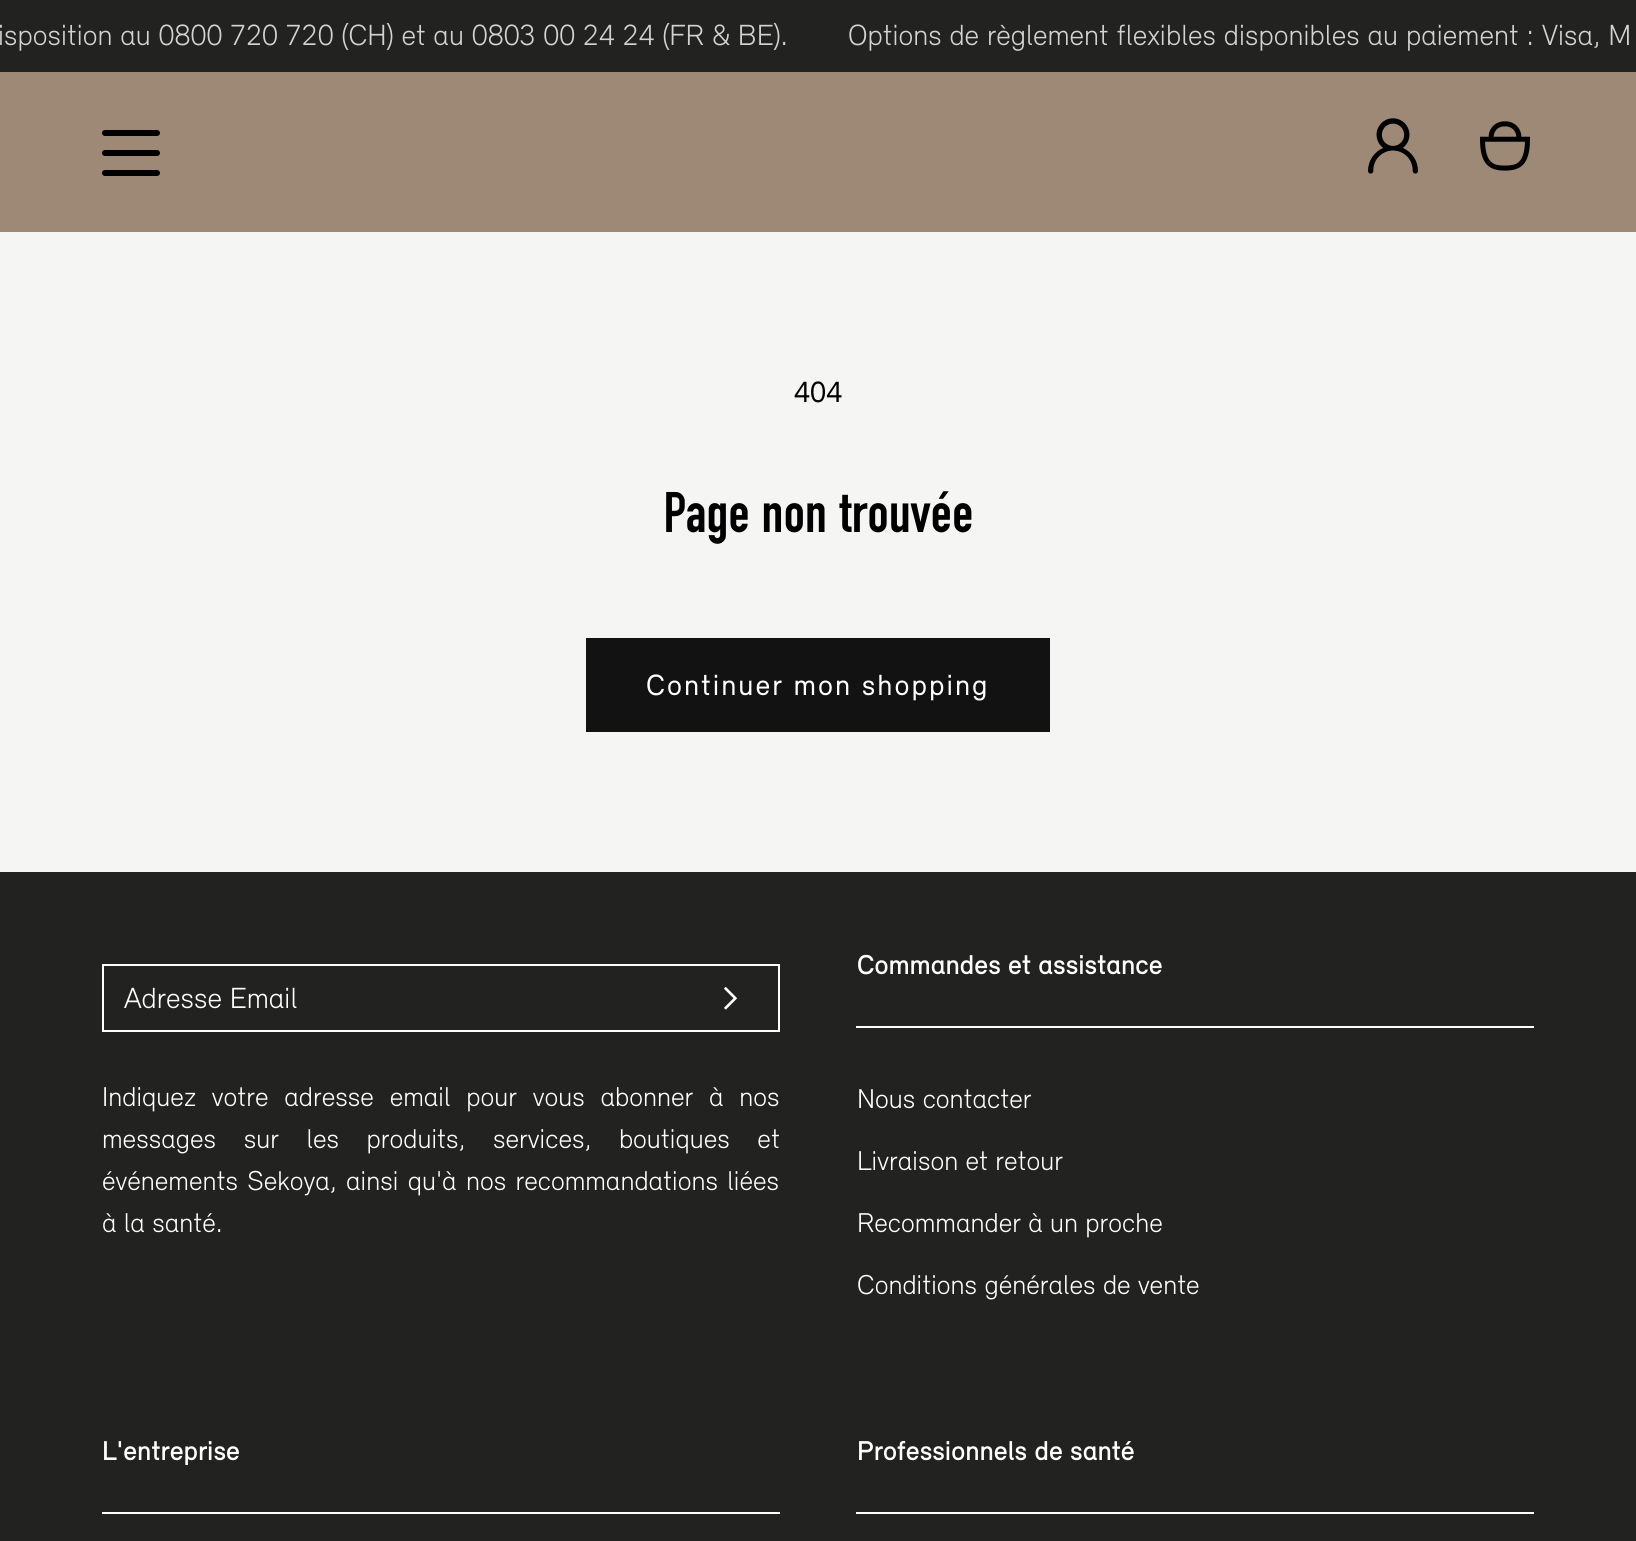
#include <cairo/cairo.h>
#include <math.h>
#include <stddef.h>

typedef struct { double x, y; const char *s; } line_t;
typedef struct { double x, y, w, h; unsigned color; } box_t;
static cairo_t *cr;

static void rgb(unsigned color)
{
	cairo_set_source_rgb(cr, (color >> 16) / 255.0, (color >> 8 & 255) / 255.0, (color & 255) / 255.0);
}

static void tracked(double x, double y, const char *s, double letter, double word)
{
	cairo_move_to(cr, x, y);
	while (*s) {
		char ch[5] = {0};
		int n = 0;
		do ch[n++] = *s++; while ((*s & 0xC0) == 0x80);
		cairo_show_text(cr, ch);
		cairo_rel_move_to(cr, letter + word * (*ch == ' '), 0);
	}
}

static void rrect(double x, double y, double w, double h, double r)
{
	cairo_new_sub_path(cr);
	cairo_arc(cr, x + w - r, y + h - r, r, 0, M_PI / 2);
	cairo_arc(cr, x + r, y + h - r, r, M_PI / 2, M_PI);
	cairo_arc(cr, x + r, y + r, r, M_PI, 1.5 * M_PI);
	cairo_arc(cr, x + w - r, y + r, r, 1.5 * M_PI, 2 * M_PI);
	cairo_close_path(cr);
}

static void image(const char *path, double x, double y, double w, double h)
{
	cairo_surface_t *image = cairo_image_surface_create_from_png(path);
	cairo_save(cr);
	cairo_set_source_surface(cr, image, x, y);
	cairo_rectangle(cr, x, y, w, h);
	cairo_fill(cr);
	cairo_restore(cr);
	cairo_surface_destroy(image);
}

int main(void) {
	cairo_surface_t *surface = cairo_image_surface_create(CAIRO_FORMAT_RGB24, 1636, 1541);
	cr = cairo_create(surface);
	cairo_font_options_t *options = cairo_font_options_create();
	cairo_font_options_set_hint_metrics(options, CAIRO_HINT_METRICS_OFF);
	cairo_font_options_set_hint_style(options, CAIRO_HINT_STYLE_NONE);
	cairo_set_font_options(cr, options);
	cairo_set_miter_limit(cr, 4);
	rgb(0xf5f5f3);
	cairo_paint(cr);
	rgb(0x222221);
	cairo_rectangle(cr, 0, 0, 1636, 72);
	cairo_fill(cr);
	rgb(0x9d8976);
	cairo_rectangle(cr, 0, 72, 1636, 160);
	cairo_fill(cr);
	rgb(0x000000);
	rrect(102, 130, 58, 6, 3);
	cairo_fill(cr);
	rrect(102, 150, 58, 6, 3);
	cairo_fill(cr);
	rrect(102, 170, 58, 6, 3);
	cairo_fill(cr);
	image("img/1.png", 1368, 118, 50, 56);
	image("img/2.png", 1480, 121, 50, 50);
	{
		static const box_t items[] = {
			{586, 638, 464, 94, 0x121212},
			{0, 872, 1636, 669, 0x222221},
			{102, 964, 678, 2, 0xffffff},
			{102, 1030, 582, 2, 0xffffff},
			{102, 964, 2, 68, 0xffffff},
			{778, 964, 2, 68, 0xffffff},
			{684, 1030, 96, 2, 0xffffff},
		};
		for (size_t i = 0; i < sizeof items / sizeof *items; i++) {
			rgb(items[i].color);
			cairo_rectangle(cr, items[i].x, items[i].y, items[i].w, items[i].h);
			cairo_fill(cr);
		}
	}
	image("img/3.png", 724, 987, 13, 23);
	{
		static const box_t items[] = {
			{856, 1026, 678, 2, 0xffffff},
			{102, 1512, 678, 2, 0xffffff},
			{856, 1512, 678, 2, 0xffffff},
		};
		for (size_t i = 0; i < sizeof items / sizeof *items; i++) {
			rgb(items[i].color);
			cairo_rectangle(cr, items[i].x, items[i].y, items[i].w, items[i].h);
			cairo_fill(cr);
		}
	}
	cairo_select_font_face(cr, "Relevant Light", CAIRO_FONT_SLANT_NORMAL, CAIRO_FONT_WEIGHT_NORMAL);
	cairo_set_font_size(cr, 30);
	rgb(0xd3d3d3);
	cairo_move_to(cr, -2, 45);
	cairo_show_text(cr, "isposition au 0800 720 720 (CH) et au 0803 00 24 24 (FR & BE).");
	cairo_move_to(cr, 848, 45);
	cairo_show_text(cr, "Options de règlement flexibles disponibles au paiement : Visa, M");
	cairo_select_font_face(cr, "Relevant", CAIRO_FONT_SLANT_NORMAL, CAIRO_FONT_WEIGHT_NORMAL);
	rgb(0x000000);
	cairo_move_to(cr, 794, 402);
	cairo_show_text(cr, "404");
	cairo_select_font_face(cr, "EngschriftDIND", CAIRO_FONT_SLANT_NORMAL, CAIRO_FONT_WEIGHT_NORMAL);
	cairo_set_font_size(cr, 60);
	cairo_move_to(cr, 663, 532);
	cairo_show_text(cr, "Page non trouvée");
	cairo_select_font_face(cr, "Relevant", CAIRO_FONT_SLANT_NORMAL, CAIRO_FONT_WEIGHT_NORMAL);
	cairo_set_font_size(cr, 30);
	rgb(0xffffff);
	tracked(646, 695, "Continuer mon shopping", 2, 0);
	cairo_select_font_face(cr, "Relevant Light", CAIRO_FONT_SLANT_NORMAL, CAIRO_FONT_WEIGHT_NORMAL);
	cairo_move_to(cr, 124, 1008);
	cairo_show_text(cr, "Adresse Email");
	cairo_set_font_size(cr, 28);
	tracked(102, 1106, "Indiquez votre adresse email pour vous abonner à nos", 0, 8.5);
	tracked(102, 1148, "messages sur les produits, services, boutiques et", 0, 20.25);
	tracked(102, 1190, "événements Sekoya, ainsi qu'à nos recommandations liées", 0, 2);
	cairo_move_to(cr, 102, 1232);
	cairo_show_text(cr, "à la santé.");
	cairo_select_font_face(cr, "Relevant Medium", CAIRO_FONT_SLANT_NORMAL, CAIRO_FONT_WEIGHT_NORMAL);
	cairo_move_to(cr, 857, 974);
	cairo_show_text(cr, "Commandes et assistance");
	cairo_select_font_face(cr, "Relevant Light", CAIRO_FONT_SLANT_NORMAL, CAIRO_FONT_WEIGHT_NORMAL);
	{
		static const line_t items[] = {
			{857, 1108, "Nous contacter"},
			{857, 1170, "Livraison et retour"},
			{857, 1232, "Recommander à un proche"},
			{857, 1294, "Conditions générales de vente"},
		};
		for (size_t i = 0; i < sizeof items / sizeof *items; i++) {
			cairo_move_to(cr, items[i].x, items[i].y);
			cairo_show_text(cr, items[i].s);
		}
	}
	cairo_select_font_face(cr, "Relevant Medium", CAIRO_FONT_SLANT_NORMAL, CAIRO_FONT_WEIGHT_NORMAL);
	cairo_move_to(cr, 102, 1460);
	cairo_show_text(cr, "L'entreprise");
	cairo_move_to(cr, 857, 1460);
	cairo_show_text(cr, "Professionnels de santé");
	cairo_surface_write_to_png(surface, "page.png");
	cairo_font_options_destroy(options);
	cairo_destroy(cr);
	cairo_surface_destroy(surface);
	return 0;
}
